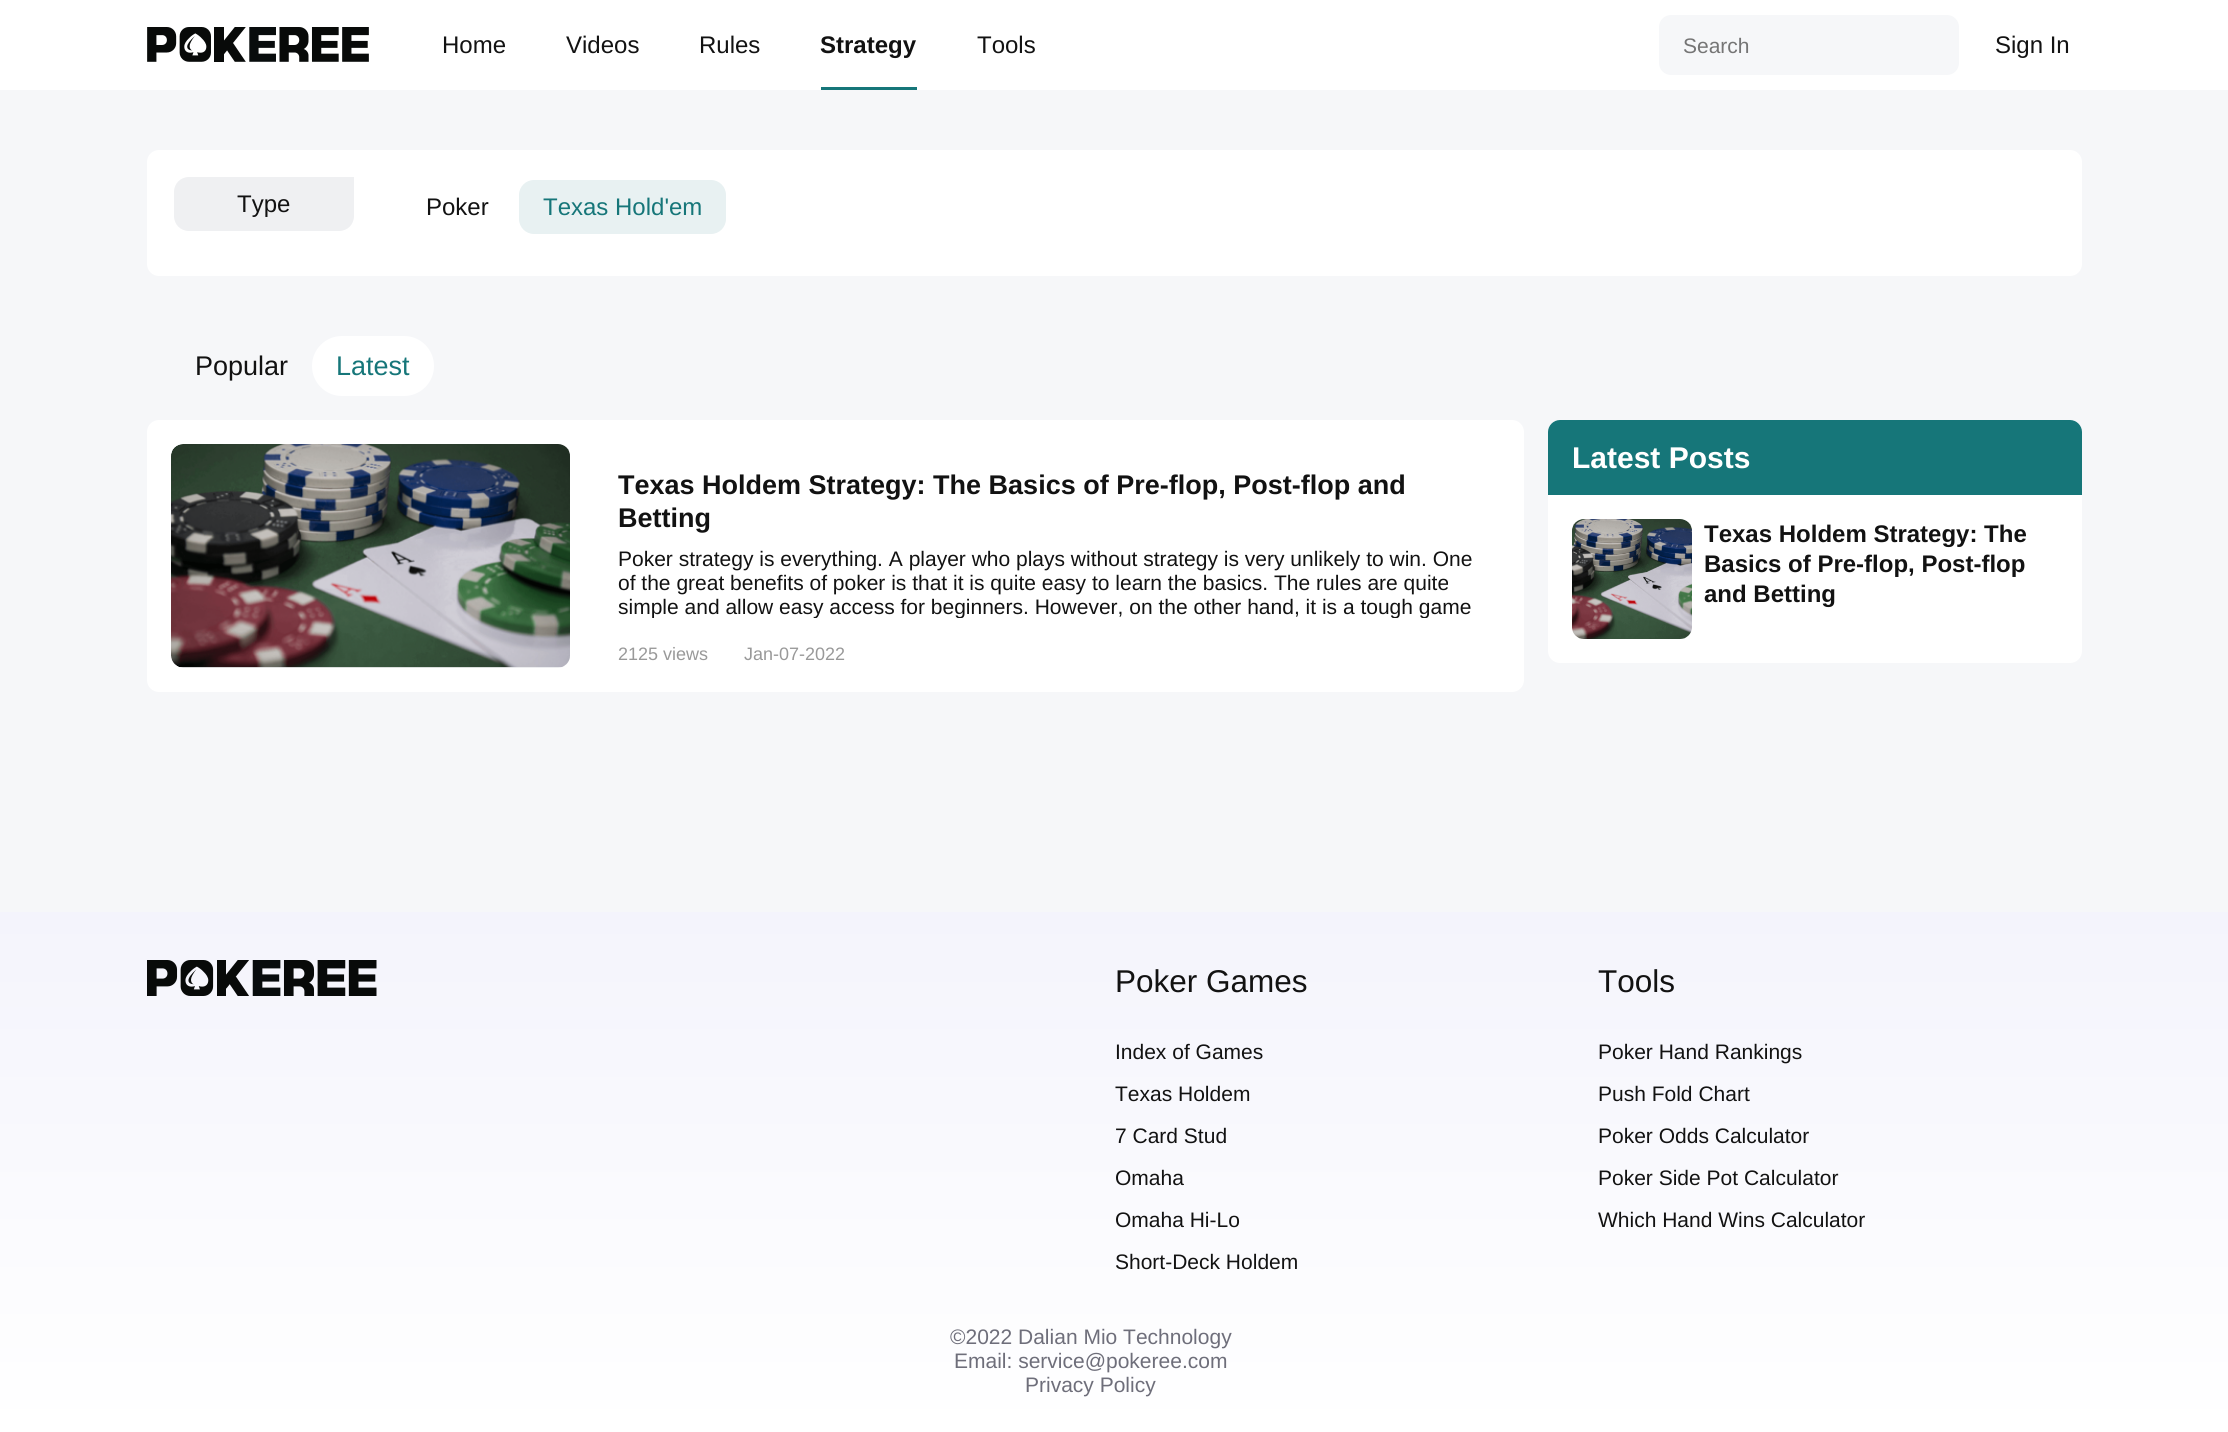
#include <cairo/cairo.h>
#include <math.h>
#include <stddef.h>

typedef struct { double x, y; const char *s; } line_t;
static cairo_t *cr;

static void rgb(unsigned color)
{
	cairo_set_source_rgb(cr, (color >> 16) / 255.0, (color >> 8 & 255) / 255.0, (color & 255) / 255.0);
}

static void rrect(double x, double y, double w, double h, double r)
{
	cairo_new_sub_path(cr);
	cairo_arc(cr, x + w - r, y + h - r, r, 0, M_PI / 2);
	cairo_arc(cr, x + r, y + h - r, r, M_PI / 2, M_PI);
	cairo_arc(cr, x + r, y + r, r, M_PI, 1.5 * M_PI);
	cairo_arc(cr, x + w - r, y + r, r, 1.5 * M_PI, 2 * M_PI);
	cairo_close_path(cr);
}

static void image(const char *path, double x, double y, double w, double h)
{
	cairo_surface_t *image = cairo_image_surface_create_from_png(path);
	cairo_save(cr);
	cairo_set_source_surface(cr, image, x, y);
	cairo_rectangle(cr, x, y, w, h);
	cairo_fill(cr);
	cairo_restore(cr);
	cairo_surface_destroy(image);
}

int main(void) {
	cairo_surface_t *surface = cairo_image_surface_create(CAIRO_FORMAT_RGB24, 2228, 1432);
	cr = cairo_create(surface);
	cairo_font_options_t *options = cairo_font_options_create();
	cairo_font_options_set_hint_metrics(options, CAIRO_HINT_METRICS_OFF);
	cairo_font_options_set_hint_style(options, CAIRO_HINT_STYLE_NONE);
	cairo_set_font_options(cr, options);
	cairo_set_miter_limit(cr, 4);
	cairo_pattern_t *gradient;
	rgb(0xf6f7f9);
	cairo_paint(cr);
	rgb(0xffffff);
	cairo_rectangle(cr, 0, 0, 2228, 90);
	cairo_fill(cr);
	image("img/1.png", 147, 27, 222, 35);
	rgb(0x167679);
	cairo_rectangle(cr, 821, 87, 96, 3);
	cairo_fill(cr);
	rgb(0xf6f7f9);
	rrect(1659, 15, 300, 60, 12);
	cairo_fill(cr);
	rgb(0xffffff);
	rrect(147, 150, 1935, 126, 12);
	cairo_fill(cr);
	rgb(0xeff0f2);
	cairo_new_path(cr);
	cairo_move_to(cr, 189, 177);
	cairo_line_to(cr, 354, 177);
	cairo_line_to(cr, 354, 216);
	cairo_curve_to(cr, 354, 224.5, 347.5, 231, 339, 231);
	cairo_line_to(cr, 189, 231);
	cairo_curve_to(cr, 180.5, 231, 174, 224.5, 174, 216);
	cairo_line_to(cr, 174, 192);
	cairo_curve_to(cr, 174, 183.5, 180.5, 177, 189, 177);
	cairo_close_path(cr);
	cairo_fill(cr);
	rgb(0xe8f1f2);
	rrect(519, 180, 207, 54, 15);
	cairo_fill(cr);
	rgb(0xffffff);
	rrect(312, 336, 122, 60, 30);
	cairo_fill(cr);
	rrect(147, 420, 1377, 272, 12);
	cairo_fill(cr);
	rgb(0xf2f3f5);
	rrect(171, 444, 399, 224, 12);
	cairo_fill(cr);
	image("img/2.png", 171, 444, 399, 224);
	rgb(0xffffff);
	rrect(1548, 420, 534, 243, 12);
	cairo_fill(cr);
	rgb(0x167679);
	cairo_new_path(cr);
	cairo_move_to(cr, 1560, 420);
	cairo_line_to(cr, 2070, 420);
	cairo_curve_to(cr, 2076.5, 420, 2082, 425.5, 2082, 432);
	cairo_line_to(cr, 2082, 495);
	cairo_line_to(cr, 1548, 495);
	cairo_line_to(cr, 1548, 432);
	cairo_curve_to(cr, 1548, 425.5, 1553.5, 420, 1560, 420);
	cairo_close_path(cr);
	cairo_fill(cr);
	image("img/3.png", 1572, 519, 120, 120);
	gradient = cairo_pattern_create_linear(1115, 912, 1115, 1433);
	cairo_pattern_add_color_stop_rgba(gradient, 0, 0.957, 0.957, 0.988, 1);
	cairo_pattern_add_color_stop_rgba(gradient, 1, 1, 1, 1, 1);
	cairo_set_source(cr, gradient);
	cairo_pattern_destroy(gradient);
	cairo_rectangle(cr, 0, 912, 2228, 520);
	cairo_fill(cr);
	image("img/4.png", 147, 960, 230, 36);
	cairo_select_font_face(cr, "Liberation Sans", CAIRO_FONT_SLANT_NORMAL, CAIRO_FONT_WEIGHT_NORMAL);
	cairo_set_font_size(cr, 24);
	rgb(0x121212);
	{
		static const line_t items[] = {
			{442, 53, "Home"},
			{566, 53, "Videos"},
			{699, 53, "Rules"},
		};
		for (size_t i = 0; i < sizeof items / sizeof *items; i++) {
			cairo_move_to(cr, items[i].x, items[i].y);
			cairo_show_text(cr, items[i].s);
		}
	}
	cairo_select_font_face(cr, "Liberation Sans", CAIRO_FONT_SLANT_NORMAL, CAIRO_FONT_WEIGHT_BOLD);
	cairo_move_to(cr, 820, 53);
	cairo_show_text(cr, "Strategy");
	cairo_select_font_face(cr, "Liberation Sans", CAIRO_FONT_SLANT_NORMAL, CAIRO_FONT_WEIGHT_NORMAL);
	cairo_move_to(cr, 977, 53);
	cairo_show_text(cr, "Tools");
	cairo_set_font_size(cr, 21);
	rgb(0x757575);
	cairo_move_to(cr, 1683, 53);
	cairo_show_text(cr, "Search");
	cairo_set_font_size(cr, 24);
	rgb(0x121212);
	{
		static const line_t items[] = {
			{1995, 53, "Sign In"},
			{237, 212, "Type"},
			{426, 215, "Poker"},
		};
		for (size_t i = 0; i < sizeof items / sizeof *items; i++) {
			cairo_move_to(cr, items[i].x, items[i].y);
			cairo_show_text(cr, items[i].s);
		}
	}
	rgb(0x167679);
	cairo_move_to(cr, 543, 215);
	cairo_show_text(cr, "Texas Hold'em");
	cairo_set_font_size(cr, 27);
	rgb(0x121212);
	cairo_move_to(cr, 195, 375);
	cairo_show_text(cr, "Popular");
	rgb(0x167679);
	cairo_move_to(cr, 336, 375);
	cairo_show_text(cr, "Latest");
	cairo_select_font_face(cr, "Liberation Sans", CAIRO_FONT_SLANT_NORMAL, CAIRO_FONT_WEIGHT_BOLD);
	rgb(0x121212);
	cairo_move_to(cr, 618, 494);
	cairo_show_text(cr, "Texas Holdem Strategy: The Basics of Pre-flop, Post-flop and");
	cairo_move_to(cr, 618, 527);
	cairo_show_text(cr, "Betting");
	cairo_select_font_face(cr, "Liberation Sans", CAIRO_FONT_SLANT_NORMAL, CAIRO_FONT_WEIGHT_NORMAL);
	cairo_set_font_size(cr, 21);
	cairo_move_to(cr, 618, 566);
	cairo_show_text(cr, "Poker strategy is everything. A player who plays without strategy is very unlikely to win. One");
	cairo_move_to(cr, 618, 590);
	cairo_show_text(cr, "of the great benefits of poker is that it is quite easy to learn the basics. The rules are quite");
	cairo_save(cr);
	cairo_rectangle(cr, 618, 546, 858, 72);
	cairo_clip(cr);
	cairo_move_to(cr, 618, 614);
	cairo_show_text(cr, "simple and allow easy access for beginners. However, on the other hand, it is a tough game");
	cairo_restore(cr);
	cairo_set_font_size(cr, 18);
	rgb(0x999999);
	cairo_move_to(cr, 618, 660);
	cairo_show_text(cr, "2125 views");
	cairo_move_to(cr, 744, 660);
	cairo_show_text(cr, "Jan-07-2022");
	cairo_select_font_face(cr, "Liberation Sans", CAIRO_FONT_SLANT_NORMAL, CAIRO_FONT_WEIGHT_BOLD);
	cairo_set_font_size(cr, 30);
	rgb(0xffffff);
	cairo_move_to(cr, 1572, 468);
	cairo_show_text(cr, "Latest Posts");
	cairo_set_font_size(cr, 24);
	rgb(0x121212);
	{
		static const line_t items[] = {
			{1704, 542, "Texas Holdem Strategy: The"},
			{1704, 572, "Basics of Pre-flop, Post-flop"},
			{1704, 602, "and Betting"},
		};
		for (size_t i = 0; i < sizeof items / sizeof *items; i++) {
			cairo_move_to(cr, items[i].x, items[i].y);
			cairo_show_text(cr, items[i].s);
		}
	}
	cairo_select_font_face(cr, "Liberation Sans", CAIRO_FONT_SLANT_NORMAL, CAIRO_FONT_WEIGHT_NORMAL);
	cairo_set_font_size(cr, 31.5);
	cairo_move_to(cr, 1115, 992);
	cairo_show_text(cr, "Poker Games");
	cairo_set_font_size(cr, 21);
	{
		static const line_t items[] = {
			{1115, 1059, "Index of Games"},
			{1115, 1101, "Texas Holdem"},
			{1115, 1143, "7 Card Stud"},
			{1115, 1185, "Omaha"},
			{1115, 1227, "Omaha Hi-Lo"},
			{1115, 1269, "Short-Deck Holdem"},
		};
		for (size_t i = 0; i < sizeof items / sizeof *items; i++) {
			cairo_move_to(cr, items[i].x, items[i].y);
			cairo_show_text(cr, items[i].s);
		}
	}
	cairo_set_font_size(cr, 31.5);
	cairo_move_to(cr, 1598, 992);
	cairo_show_text(cr, "Tools");
	cairo_set_font_size(cr, 21);
	{
		static const line_t items[] = {
			{1598, 1059, "Poker Hand Rankings"},
			{1598, 1101, "Push Fold Chart"},
			{1598, 1143, "Poker Odds Calculator"},
			{1598, 1185, "Poker Side Pot Calculator"},
			{1598, 1227, "Which Hand Wins Calculator"},
		};
		for (size_t i = 0; i < sizeof items / sizeof *items; i++) {
			cairo_move_to(cr, items[i].x, items[i].y);
			cairo_show_text(cr, items[i].s);
		}
	}
	rgb(0x6e6e7a);
	{
		static const line_t items[] = {
			{950, 1344, "©2022 Dalian Mio Technology"},
			{954, 1368, "Email: service@pokeree.com"},
			{1025, 1392, "Privacy Policy"},
		};
		for (size_t i = 0; i < sizeof items / sizeof *items; i++) {
			cairo_move_to(cr, items[i].x, items[i].y);
			cairo_show_text(cr, items[i].s);
		}
	}
	cairo_surface_write_to_png(surface, "page.png");
	cairo_font_options_destroy(options);
	cairo_destroy(cr);
	cairo_surface_destroy(surface);
	return 0;
}
